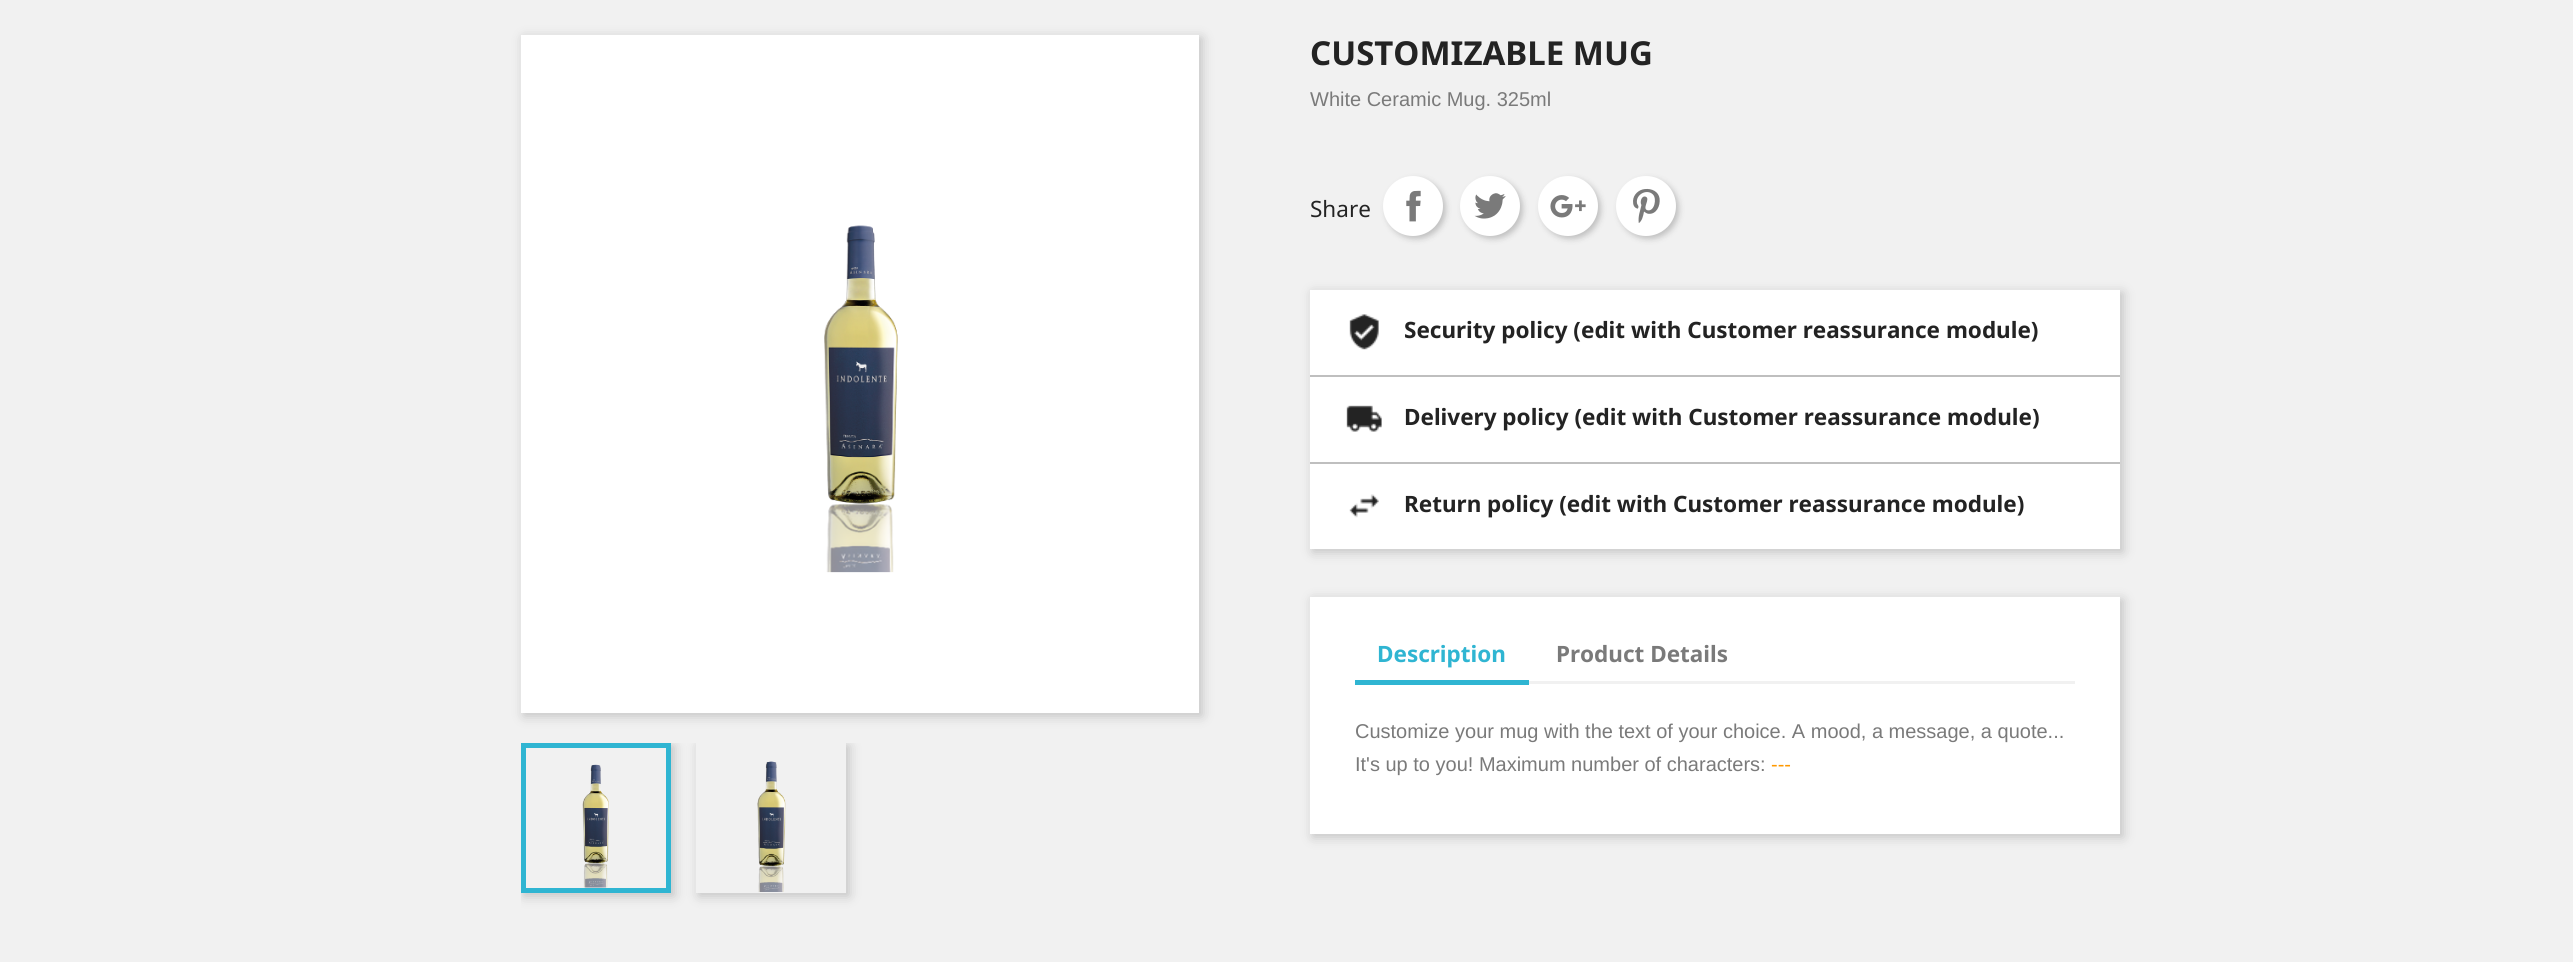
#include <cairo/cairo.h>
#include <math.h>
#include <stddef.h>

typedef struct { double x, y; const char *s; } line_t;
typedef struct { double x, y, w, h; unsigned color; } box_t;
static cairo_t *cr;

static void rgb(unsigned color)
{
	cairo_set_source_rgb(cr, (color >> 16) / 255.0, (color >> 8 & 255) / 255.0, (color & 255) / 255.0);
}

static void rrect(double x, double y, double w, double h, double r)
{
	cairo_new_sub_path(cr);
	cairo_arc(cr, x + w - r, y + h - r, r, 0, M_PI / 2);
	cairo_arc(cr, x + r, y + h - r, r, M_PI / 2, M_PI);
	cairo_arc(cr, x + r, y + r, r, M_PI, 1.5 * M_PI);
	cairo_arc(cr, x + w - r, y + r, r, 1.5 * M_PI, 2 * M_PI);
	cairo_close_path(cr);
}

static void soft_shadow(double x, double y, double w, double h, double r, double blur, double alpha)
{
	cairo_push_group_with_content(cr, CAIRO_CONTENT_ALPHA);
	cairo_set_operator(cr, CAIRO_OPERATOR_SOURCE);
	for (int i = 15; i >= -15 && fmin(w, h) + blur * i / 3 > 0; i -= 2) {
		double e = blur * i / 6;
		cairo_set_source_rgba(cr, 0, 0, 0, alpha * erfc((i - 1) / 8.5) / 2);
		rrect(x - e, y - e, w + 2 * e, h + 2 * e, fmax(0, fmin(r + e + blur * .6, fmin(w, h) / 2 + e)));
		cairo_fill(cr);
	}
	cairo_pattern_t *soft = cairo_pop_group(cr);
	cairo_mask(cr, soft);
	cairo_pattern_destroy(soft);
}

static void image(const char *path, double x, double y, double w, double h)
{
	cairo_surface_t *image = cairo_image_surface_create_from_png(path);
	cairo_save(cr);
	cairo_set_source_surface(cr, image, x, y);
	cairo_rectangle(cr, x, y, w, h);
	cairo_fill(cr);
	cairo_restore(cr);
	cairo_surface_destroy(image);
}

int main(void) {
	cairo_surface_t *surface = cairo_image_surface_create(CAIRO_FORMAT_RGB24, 2573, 962);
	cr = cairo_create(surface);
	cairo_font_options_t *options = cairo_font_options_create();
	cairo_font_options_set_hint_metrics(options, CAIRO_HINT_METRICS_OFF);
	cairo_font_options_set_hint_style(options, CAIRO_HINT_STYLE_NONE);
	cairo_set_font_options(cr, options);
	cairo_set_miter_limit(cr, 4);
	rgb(0xf1f1f1);
	cairo_paint(cr);
	rgb(0x000000);
	soft_shadow(524, 38, 678, 678, 0, 6, 0.2);
	rgb(0xffffff);
	cairo_rectangle(cr, 521, 35, 678, 678);
	cairo_fill(cr);
	image("img/1.png", 824, 225, 74, 348);
	cairo_save(cr);
	cairo_rectangle(cr, 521, 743, 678, 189);
	cairo_clip(cr);
	cairo_set_fill_rule(cr, CAIRO_FILL_RULE_EVEN_ODD);
	cairo_new_path(cr);
	cairo_move_to(cr, 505, 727);
	cairo_line_to(cr, 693, 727);
	cairo_line_to(cr, 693, 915);
	cairo_line_to(cr, 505, 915);
	cairo_close_path(cr);
	cairo_move_to(cr, 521, 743);
	cairo_line_to(cr, 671, 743);
	cairo_line_to(cr, 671, 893);
	cairo_line_to(cr, 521, 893);
	cairo_close_path(cr);
	cairo_clip(cr);
	rgb(0x000000);
	soft_shadow(524, 746, 150, 150, 0, 6, 0.2);
	cairo_restore(cr);
	cairo_save(cr);
	cairo_rectangle(cr, 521, 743, 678, 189);
	cairo_clip(cr);
	cairo_set_fill_rule(cr, CAIRO_FILL_RULE_EVEN_ODD);
	cairo_new_path(cr);
	cairo_move_to(cr, 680, 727);
	cairo_line_to(cr, 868, 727);
	cairo_line_to(cr, 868, 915);
	cairo_line_to(cr, 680, 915);
	cairo_close_path(cr);
	cairo_move_to(cr, 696, 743);
	cairo_line_to(cr, 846, 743);
	cairo_line_to(cr, 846, 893);
	cairo_line_to(cr, 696, 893);
	cairo_close_path(cr);
	cairo_clip(cr);
	rgb(0x000000);
	soft_shadow(699, 746, 150, 150, 0, 6, 0.2);
	cairo_restore(cr);
	cairo_rectangle(cr, 523.5, 745.5, 145, 145);
	rgb(0x2fb5d2);
	cairo_set_line_width(cr, 5);
	cairo_stroke(cr);
	image("img/2.png", 757, 761, 29, 131);
	image("img/3.png", 582, 764, 27, 124);
	rgb(0x000000);
	soft_shadow(1386, 179, 60, 60, 30, 3, 0.2);
	rgb(0xffffff);
	cairo_arc(cr, 1413, 206, 30, 0, 2 * M_PI);
	cairo_fill(cr);
	image("img/4.png", 1406, 190, 15, 32);
	rgb(0x000000);
	soft_shadow(1463, 179, 60, 60, 30, 3, 0.2);
	rgb(0xffffff);
	cairo_arc(cr, 1490, 206, 30, 0, 2 * M_PI);
	cairo_fill(cr);
	image("img/5.png", 1474, 193, 32, 26);
	rgb(0x000000);
	soft_shadow(1541, 179, 60, 60, 30, 3, 0.2);
	rgb(0xffffff);
	cairo_arc(cr, 1568, 206, 30, 0, 2 * M_PI);
	cairo_fill(cr);
	image("img/6.png", 1550, 195, 36, 23);
	rgb(0x000000);
	soft_shadow(1619, 179, 60, 60, 30, 3, 0.2);
	rgb(0xffffff);
	cairo_arc(cr, 1646, 206, 30, 0, 2 * M_PI);
	cairo_fill(cr);
	image("img/7.png", 1633, 188, 27, 35);
	rgb(0x000000);
	soft_shadow(1313, 293, 810, 259, 0, 6, 0.2);
	rgb(0xffffff);
	cairo_rectangle(cr, 1310, 290, 810, 259);
	cairo_fill(cr);
	rgb(0xbfbfbf);
	cairo_rectangle(cr, 1310, 375, 810, 2);
	cairo_fill(cr);
	image("img/8.png", 1349, 314, 30, 36);
	cairo_rectangle(cr, 1310, 462, 810, 2);
	cairo_fill(cr);
	image("img/9.png", 1346, 405, 36, 27);
	image("img/10.png", 1349, 494, 30, 24);
	rgb(0x000000);
	soft_shadow(1313, 600, 810, 237, 0, 6, 0.2);
	{
		static const box_t items[] = {
			{1310, 597, 810, 237, 0xffffff},
			{1529, 681, 546, 3, 0xf1f1f1},
			{1355, 680, 174, 5, 0x2fb5d2},
		};
		for (size_t i = 0; i < sizeof items / sizeof *items; i++) {
			rgb(items[i].color);
			cairo_rectangle(cr, items[i].x, items[i].y, items[i].w, items[i].h);
			cairo_fill(cr);
		}
	}
	cairo_select_font_face(cr, "Noto Sans", CAIRO_FONT_SLANT_NORMAL, CAIRO_FONT_WEIGHT_BOLD);
	cairo_set_font_size(cr, 33);
	rgb(0x232323);
	cairo_move_to(cr, 1310, 65);
	cairo_show_text(cr, "CUSTOMIZABLE MUG");
	cairo_select_font_face(cr, "Liberation Sans", CAIRO_FONT_SLANT_NORMAL, CAIRO_FONT_WEIGHT_NORMAL);
	cairo_set_font_size(cr, 20);
	rgb(0x7a7a7a);
	cairo_move_to(cr, 1310, 106);
	cairo_show_text(cr, "White Ceramic Mug. 325ml");
	cairo_select_font_face(cr, "Noto Sans", CAIRO_FONT_SLANT_NORMAL, CAIRO_FONT_WEIGHT_NORMAL);
	cairo_set_font_size(cr, 22.5);
	rgb(0x232323);
	cairo_move_to(cr, 1310, 217);
	cairo_show_text(cr, "Share");
	cairo_select_font_face(cr, "Noto Sans", CAIRO_FONT_SLANT_NORMAL, CAIRO_FONT_WEIGHT_BOLD);
	{
		static const line_t items[] = {
			{1404, 338, "Security policy (edit with Customer reassurance module)"},
			{1404, 425, "Delivery policy (edit with Customer reassurance module)"},
			{1404, 512, "Return policy (edit with Customer reassurance module)"},
		};
		for (size_t i = 0; i < sizeof items / sizeof *items; i++) {
			cairo_move_to(cr, items[i].x, items[i].y);
			cairo_show_text(cr, items[i].s);
		}
	}
	rgb(0x2fb5d2);
	cairo_move_to(cr, 1377, 662);
	cairo_show_text(cr, "Description");
	rgb(0x7a7a7a);
	cairo_move_to(cr, 1556, 662);
	cairo_show_text(cr, "Product Details");
	cairo_select_font_face(cr, "Liberation Sans", CAIRO_FONT_SLANT_NORMAL, CAIRO_FONT_WEIGHT_NORMAL);
	cairo_set_font_size(cr, 20);
	cairo_move_to(cr, 1355, 738);
	cairo_show_text(cr, "Customize your mug with the text of your choice. A mood, a message, a quote...");
	cairo_move_to(cr, 1355, 771);
	cairo_show_text(cr, "It's up to you! Maximum number of characters:");
	rgb(0xff9900);
	cairo_move_to(cr, 1771, 771);
	cairo_show_text(cr, "---");
	cairo_surface_write_to_png(surface, "page.png");
	cairo_font_options_destroy(options);
	cairo_destroy(cr);
	cairo_surface_destroy(surface);
	return 0;
}
